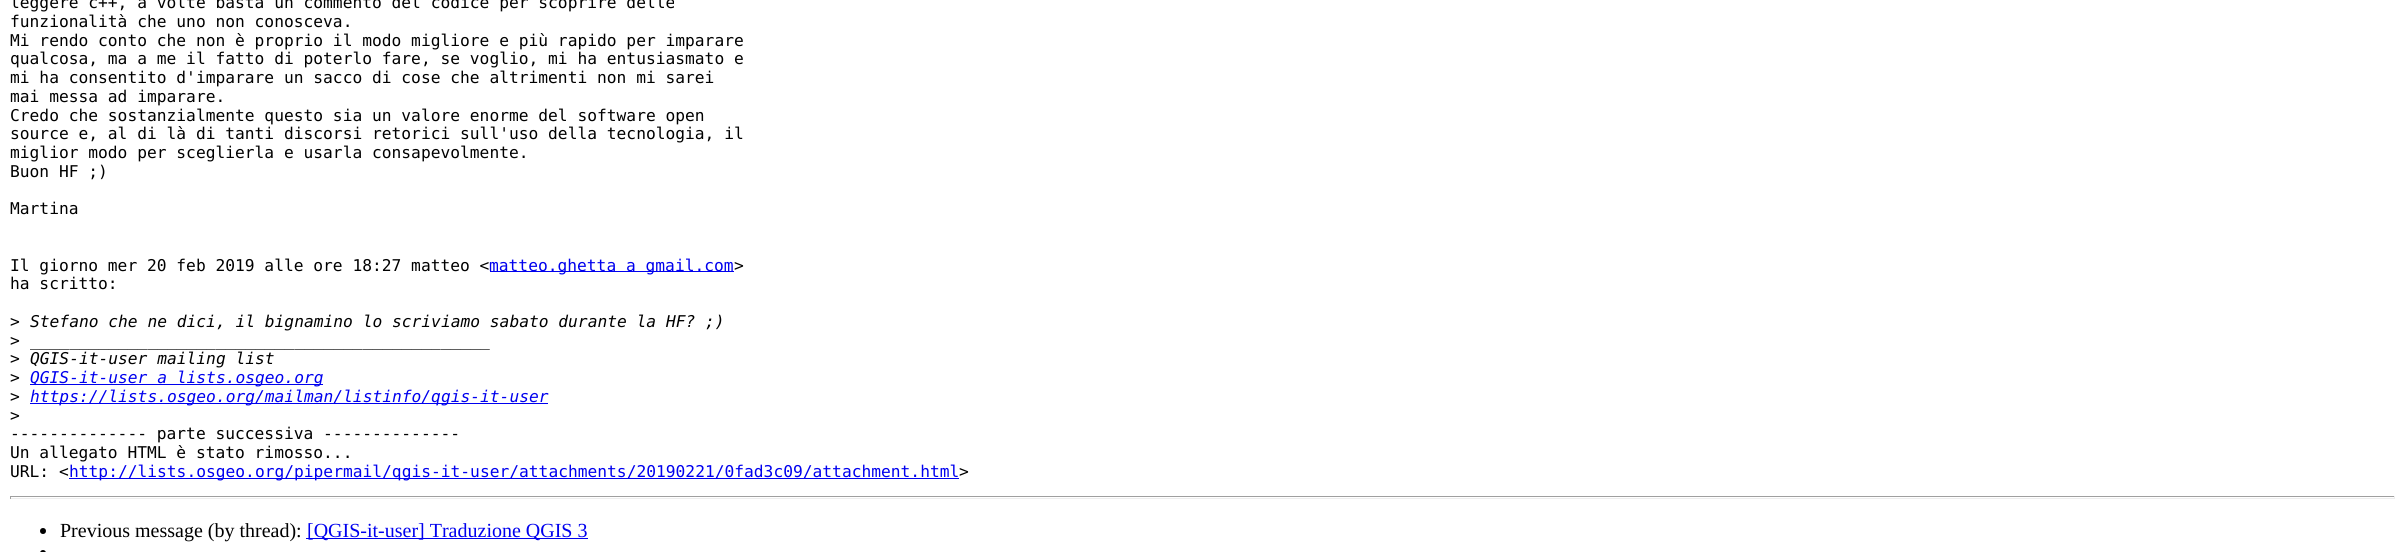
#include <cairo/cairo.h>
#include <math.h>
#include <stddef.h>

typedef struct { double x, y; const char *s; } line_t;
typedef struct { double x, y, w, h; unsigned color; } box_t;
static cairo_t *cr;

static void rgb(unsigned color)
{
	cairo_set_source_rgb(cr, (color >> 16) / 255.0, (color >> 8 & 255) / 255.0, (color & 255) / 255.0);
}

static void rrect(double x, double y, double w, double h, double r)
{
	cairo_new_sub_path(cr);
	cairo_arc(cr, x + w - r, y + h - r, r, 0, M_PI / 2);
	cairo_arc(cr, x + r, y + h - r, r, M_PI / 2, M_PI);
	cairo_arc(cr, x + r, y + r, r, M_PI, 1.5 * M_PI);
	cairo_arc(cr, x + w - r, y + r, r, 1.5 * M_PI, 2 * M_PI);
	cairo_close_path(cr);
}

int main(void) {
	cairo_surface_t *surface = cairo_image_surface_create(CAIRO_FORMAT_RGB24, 2404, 552);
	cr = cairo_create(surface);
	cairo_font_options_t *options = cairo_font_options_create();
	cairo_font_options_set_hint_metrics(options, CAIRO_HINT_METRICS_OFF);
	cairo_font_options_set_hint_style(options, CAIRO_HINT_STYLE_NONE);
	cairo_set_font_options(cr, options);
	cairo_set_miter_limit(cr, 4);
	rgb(0xffffff);
	cairo_paint(cr);
	{
		static const box_t items[] = {
			{490, 271, 244, 1, 0x0000ee},
			{30, 384, 293, 1, 0x0000ee},
			{30, 403, 518, 1, 0x0000ee},
			{69, 478, 890, 1, 0x0000ee},
			{10, 496, 2385, 1, 0x9f9f9f},
			{2394, 496, 1, 3, 0xeeeeee},
			{10, 498, 2385, 1, 0xeeeeee},
			{10, 496, 1, 3, 0x9f9f9f},
		};
		for (size_t i = 0; i < sizeof items / sizeof *items; i++) {
			rgb(items[i].color);
			cairo_rectangle(cr, items[i].x, items[i].y, items[i].w, items[i].h);
			cairo_fill(cr);
		}
	}
	rgb(0x000000);
	cairo_arc(cr, 43, 531, 3, 0, 2 * M_PI);
	cairo_fill(cr);
	rgb(0x0000ee);
	cairo_rectangle(cr, 306, 538, 282, 1);
	cairo_fill(cr);
	rgb(0x000000);
	rrect(40, 550, 6, 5, 3);
	cairo_fill(cr);
	cairo_select_font_face(cr, "DejaVu Sans Mono", CAIRO_FONT_SLANT_NORMAL, CAIRO_FONT_WEIGHT_NORMAL);
	cairo_set_font_size(cr, 16.25);
	{
		static const line_t items[] = {
			{10, 8, "leggere c++, a volte basta un commento del codice per scoprire delle"},
			{10, 27, "funzionalità che uno non conosceva."},
			{10, 46, "Mi rendo conto che non è proprio il modo migliore e più rapido per imparare"},
			{10, 64, "qualcosa, ma a me il fatto di poterlo fare, se voglio, mi ha entusiasmato e"},
			{10, 83, "mi ha consentito d'imparare un sacco di cose che altrimenti non mi sarei"},
			{10, 102, "mai messa ad imparare."},
			{10, 121, "Credo che sostanzialmente questo sia un valore enorme del software open"},
			{10, 139, "source e, al di là di tanti discorsi retorici sull'uso della tecnologia, il"},
			{10, 158, "miglior modo per sceglierla e usarla consapevolmente."},
			{10, 177, "Buon HF ;)"},
			{10, 214, "Martina"},
			{10, 271, "Il giorno mer 20 feb 2019 alle ore 18:27 matteo <"},
		};
		for (size_t i = 0; i < sizeof items / sizeof *items; i++) {
			cairo_move_to(cr, items[i].x, items[i].y);
			cairo_show_text(cr, items[i].s);
		}
	}
	rgb(0x0000ee);
	cairo_move_to(cr, 489, 271);
	cairo_show_text(cr, "matteo.ghetta a gmail.com");
	rgb(0x000000);
	{
		static const line_t items[] = {
			{734, 271, ">"},
			{10, 289, "ha scritto:"},
			{10, 327, ">"},
		};
		for (size_t i = 0; i < sizeof items / sizeof *items; i++) {
			cairo_move_to(cr, items[i].x, items[i].y);
			cairo_show_text(cr, items[i].s);
		}
	}
	cairo_select_font_face(cr, "DejaVu Sans Mono", CAIRO_FONT_SLANT_ITALIC, CAIRO_FONT_WEIGHT_NORMAL);
	cairo_move_to(cr, 30, 327);
	cairo_show_text(cr, "Stefano che ne dici, il bignamino lo scriviamo sabato durante la HF? ;)");
	cairo_select_font_face(cr, "DejaVu Sans Mono", CAIRO_FONT_SLANT_NORMAL, CAIRO_FONT_WEIGHT_NORMAL);
	cairo_move_to(cr, 10, 346);
	cairo_show_text(cr, ">");
	cairo_select_font_face(cr, "DejaVu Sans Mono", CAIRO_FONT_SLANT_ITALIC, CAIRO_FONT_WEIGHT_NORMAL);
	cairo_move_to(cr, 30, 346);
	cairo_show_text(cr, "_______________________________________________");
	cairo_select_font_face(cr, "DejaVu Sans Mono", CAIRO_FONT_SLANT_NORMAL, CAIRO_FONT_WEIGHT_NORMAL);
	cairo_move_to(cr, 10, 364);
	cairo_show_text(cr, ">");
	cairo_select_font_face(cr, "DejaVu Sans Mono", CAIRO_FONT_SLANT_ITALIC, CAIRO_FONT_WEIGHT_NORMAL);
	cairo_move_to(cr, 30, 364);
	cairo_show_text(cr, "QGIS-it-user mailing list");
	cairo_select_font_face(cr, "DejaVu Sans Mono", CAIRO_FONT_SLANT_NORMAL, CAIRO_FONT_WEIGHT_NORMAL);
	cairo_move_to(cr, 10, 383);
	cairo_show_text(cr, ">");
	cairo_select_font_face(cr, "DejaVu Sans Mono", CAIRO_FONT_SLANT_ITALIC, CAIRO_FONT_WEIGHT_NORMAL);
	rgb(0x0000ee);
	cairo_move_to(cr, 30, 383);
	cairo_show_text(cr, "QGIS-it-user a lists.osgeo.org");
	cairo_select_font_face(cr, "DejaVu Sans Mono", CAIRO_FONT_SLANT_NORMAL, CAIRO_FONT_WEIGHT_NORMAL);
	rgb(0x000000);
	cairo_move_to(cr, 10, 402);
	cairo_show_text(cr, ">");
	cairo_select_font_face(cr, "DejaVu Sans Mono", CAIRO_FONT_SLANT_ITALIC, CAIRO_FONT_WEIGHT_NORMAL);
	rgb(0x0000ee);
	cairo_move_to(cr, 30, 402);
	cairo_show_text(cr, "https://lists.osgeo.org/mailman/listinfo/qgis-it-user");
	cairo_select_font_face(cr, "DejaVu Sans Mono", CAIRO_FONT_SLANT_NORMAL, CAIRO_FONT_WEIGHT_NORMAL);
	rgb(0x000000);
	{
		static const line_t items[] = {
			{10, 421, ">"},
			{10, 439, "-------------- parte successiva --------------"},
			{10, 458, "Un allegato HTML è stato rimosso..."},
			{10, 477, "URL: <"},
		};
		for (size_t i = 0; i < sizeof items / sizeof *items; i++) {
			cairo_move_to(cr, items[i].x, items[i].y);
			cairo_show_text(cr, items[i].s);
		}
	}
	rgb(0x0000ee);
	cairo_move_to(cr, 69, 477);
	cairo_show_text(cr, "http://lists.osgeo.org/pipermail/qgis-it-user/attachments/20190221/0fad3c09/attachment.html");
	rgb(0x000000);
	cairo_move_to(cr, 959, 477);
	cairo_show_text(cr, ">");
	cairo_select_font_face(cr, "Liberation Serif", CAIRO_FONT_SLANT_NORMAL, CAIRO_FONT_WEIGHT_NORMAL);
	cairo_set_font_size(cr, 20);
	cairo_move_to(cr, 60, 537);
	cairo_show_text(cr, "Previous message (by thread):");
	rgb(0x0000ee);
	cairo_move_to(cr, 307, 537);
	cairo_show_text(cr, "[QGIS-it-user] Traduzione QGIS 3");
	cairo_surface_write_to_png(surface, "page.png");
	cairo_font_options_destroy(options);
	cairo_destroy(cr);
	cairo_surface_destroy(surface);
	return 0;
}
